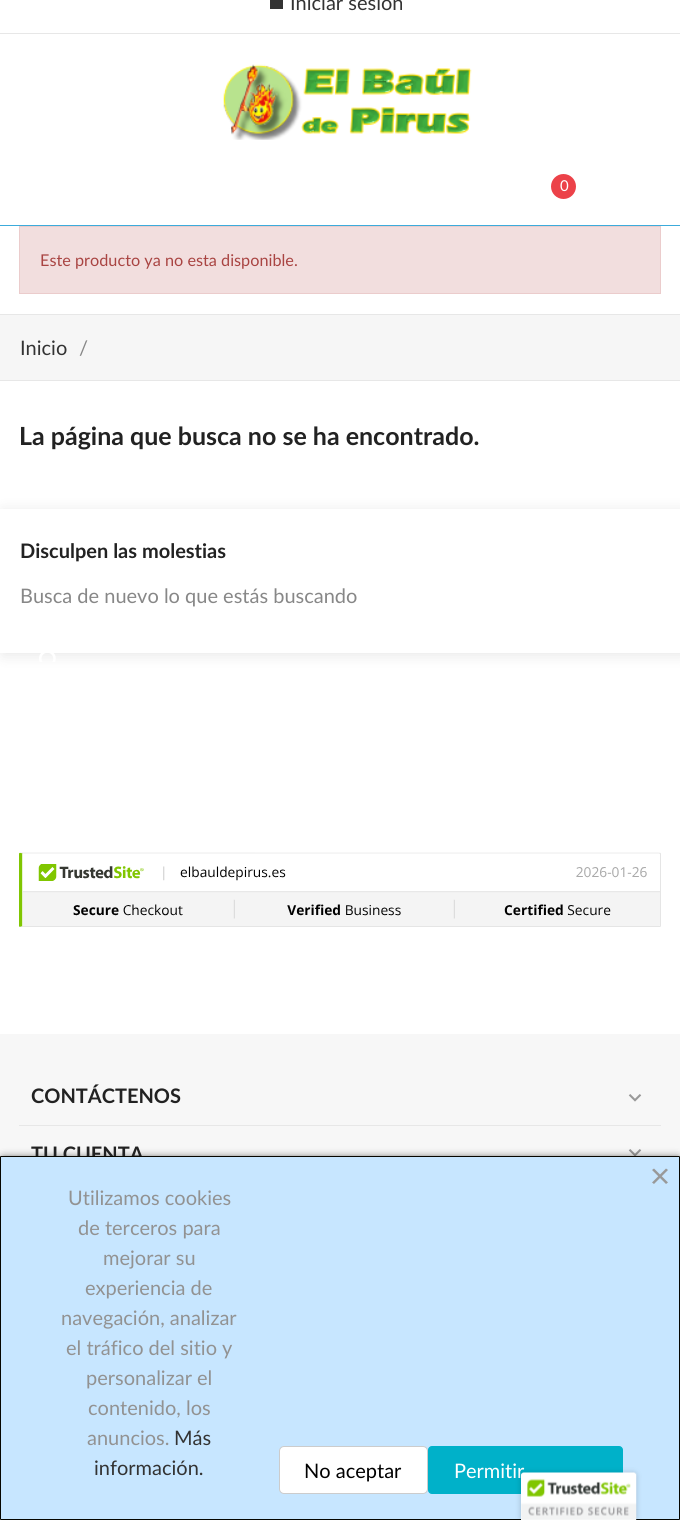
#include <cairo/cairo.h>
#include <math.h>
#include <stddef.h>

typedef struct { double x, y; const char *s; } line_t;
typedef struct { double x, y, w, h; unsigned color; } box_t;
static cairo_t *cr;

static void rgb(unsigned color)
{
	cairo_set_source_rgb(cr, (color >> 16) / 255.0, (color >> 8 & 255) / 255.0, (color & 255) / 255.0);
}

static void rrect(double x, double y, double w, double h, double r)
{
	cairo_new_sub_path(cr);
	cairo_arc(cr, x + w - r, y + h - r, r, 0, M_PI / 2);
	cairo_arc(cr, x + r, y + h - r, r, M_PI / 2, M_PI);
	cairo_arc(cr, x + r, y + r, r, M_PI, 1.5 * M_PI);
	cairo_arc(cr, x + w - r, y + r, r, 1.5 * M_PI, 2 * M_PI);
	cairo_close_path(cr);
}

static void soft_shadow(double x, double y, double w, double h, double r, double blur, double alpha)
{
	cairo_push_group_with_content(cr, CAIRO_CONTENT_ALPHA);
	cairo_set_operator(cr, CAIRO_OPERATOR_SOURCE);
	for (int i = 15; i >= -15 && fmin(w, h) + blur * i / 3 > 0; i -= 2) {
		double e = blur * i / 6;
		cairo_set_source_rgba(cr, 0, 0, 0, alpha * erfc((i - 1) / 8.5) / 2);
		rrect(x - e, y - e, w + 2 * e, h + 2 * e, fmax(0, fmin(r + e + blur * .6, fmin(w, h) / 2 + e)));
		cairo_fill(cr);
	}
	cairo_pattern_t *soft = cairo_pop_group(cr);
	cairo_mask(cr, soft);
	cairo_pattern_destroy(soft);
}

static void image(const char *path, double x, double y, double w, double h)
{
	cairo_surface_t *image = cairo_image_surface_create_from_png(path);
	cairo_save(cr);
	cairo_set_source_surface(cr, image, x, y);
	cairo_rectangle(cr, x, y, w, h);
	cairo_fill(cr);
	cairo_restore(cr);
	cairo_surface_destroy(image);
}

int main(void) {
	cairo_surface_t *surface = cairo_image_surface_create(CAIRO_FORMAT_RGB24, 680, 1520);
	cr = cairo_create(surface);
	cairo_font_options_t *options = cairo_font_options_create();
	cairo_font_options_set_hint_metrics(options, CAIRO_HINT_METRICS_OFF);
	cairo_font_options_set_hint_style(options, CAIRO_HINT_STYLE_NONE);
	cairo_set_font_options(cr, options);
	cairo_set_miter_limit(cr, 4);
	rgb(0xffffff);
	cairo_paint(cr);
	rgb(0xe7e7e7);
	cairo_rectangle(cr, 0, 33, 680, 1);
	cairo_fill(cr);
	rgb(0x333333);
	cairo_rectangle(cr, 270, 0, 13, 9);
	cairo_fill(cr);
	image("img/1.png", 223, 64, 249, 76);
	rgb(0xec4249);
	cairo_arc(cr, 563.5, 186.5, 12.5, 0, 2 * M_PI);
	cairo_fill(cr);
	rgb(0x3cabdb);
	cairo_rectangle(cr, 0, 225, 680, 1);
	cairo_fill(cr);
	rgb(0xf2dede);
	cairo_rectangle(cr, 19.5, 226.5, 641, 67);
	cairo_fill_preserve(cr);
	rgb(0xebcccc);
	cairo_set_line_width(cr, 1);
	cairo_stroke(cr);
	{
		static const box_t items[] = {
			{0, 315, 680, 65, 0xf6f6f6},
			{0, 314, 680, 1, 0xe7e7e7},
			{0, 380, 680, 1, 0xe7e7e7},
		};
		for (size_t i = 0; i < sizeof items / sizeof *items; i++) {
			rgb(items[i].color);
			cairo_rectangle(cr, items[i].x, items[i].y, items[i].w, items[i].h);
			cairo_fill(cr);
		}
	}
	rgb(0x000000);
	soft_shadow(3, 511, 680, 144, 0, 7, 0.1);
	rgb(0xffffff);
	cairo_rectangle(cr, 0, 509, 680, 144);
	cairo_fill(cr);
	image("img/2.png", 39, 653, 17, 9);
	image("img/3.png", 19, 852, 642, 75);
	rgb(0xf7f7f7);
	cairo_rectangle(cr, 0, 1034, 680, 486);
	cairo_fill(cr);
	rgb(0xe7e7e7);
	cairo_rectangle(cr, 19, 1125, 642, 1);
	cairo_fill(cr);
	image("img/4.png", 628, 1094, 14, 8);
	image("img/5.png", 628, 1149, 14, 7);
	rgb(0x060600);
	soft_shadow(3, 1159, 675, 359, 0, 4.5, 1);
	cairo_select_font_face(cr, "Lato", CAIRO_FONT_SLANT_NORMAL, CAIRO_FONT_WEIGHT_NORMAL);
	cairo_set_font_size(cr, 20);
	rgb(0x333333);
	cairo_move_to(cr, 290, 10);
	cairo_show_text(cr, "Iniciar sesión");
	cairo_set_font_size(cr, 15);
	rgb(0xffffff);
	cairo_move_to(cr, 560, 191);
	cairo_show_text(cr, "0");
	cairo_set_font_size(cr, 16.25);
	rgb(0xa94442);
	cairo_move_to(cr, 40, 266);
	cairo_show_text(cr, "Este producto ya no esta disponible.");
	cairo_set_font_size(cr, 20);
	rgb(0x333333);
	cairo_move_to(cr, 20, 355);
	cairo_show_text(cr, "Inicio");
	rgb(0x878787);
	cairo_move_to(cr, 79, 355);
	cairo_show_text(cr, "/");
	cairo_select_font_face(cr, "Lato", CAIRO_FONT_SLANT_NORMAL, CAIRO_FONT_WEIGHT_BOLD);
	cairo_set_font_size(cr, 25);
	rgb(0x222222);
	cairo_move_to(cr, 19, 445);
	cairo_show_text(cr, "La página que busca no se ha encontrado.");
	cairo_set_font_size(cr, 20);
	cairo_move_to(cr, 20, 558);
	cairo_show_text(cr, "Disculpen las molestias");
	cairo_select_font_face(cr, "Lato", CAIRO_FONT_SLANT_NORMAL, CAIRO_FONT_WEIGHT_NORMAL);
	rgb(0x878787);
	cairo_move_to(cr, 20, 603);
	cairo_show_text(cr, "Busca de nuevo lo que estás buscando");
	cairo_select_font_face(cr, "Lato", CAIRO_FONT_SLANT_NORMAL, CAIRO_FONT_WEIGHT_BOLD);
	rgb(0x222222);
	cairo_move_to(cr, 31, 1103);
	cairo_show_text(cr, "CONTÁCTENOS");
	cairo_move_to(cr, 31, 1161);
	cairo_show_text(cr, "TU CUENTA");
	rgb(0xc7e6ff);
	rrect(0.5, 1156.5, 679, 363, 0.5);
	cairo_fill_preserve(cr);
	rgb(0x060600);
	cairo_stroke(cr);
	rgb(0x999999);
	cairo_new_path(cr);
	cairo_move_to(cr, 652, 1182.5);
	cairo_line_to(cr, 666, 1168.5);
	cairo_line_to(cr, 668, 1170);
	cairo_line_to(cr, 654, 1184);
	cairo_close_path(cr);
	cairo_fill(cr);
	cairo_new_path(cr);
	cairo_move_to(cr, 654, 1168.5);
	cairo_line_to(cr, 668, 1182.5);
	cairo_line_to(cr, 666, 1184);
	cairo_line_to(cr, 652, 1170);
	cairo_close_path(cr);
	cairo_fill(cr);
	cairo_select_font_face(cr, "Lato", CAIRO_FONT_SLANT_NORMAL, CAIRO_FONT_WEIGHT_NORMAL);
	rgb(0x929292);
	{
		static const line_t items[] = {
			{68, 1205, "Utilizamos cookies"},
			{78, 1235, "de terceros para"},
			{103, 1265, "mejorar su"},
			{85, 1295, "experiencia de"},
			{61, 1325, "navegación, analizar"},
			{66, 1355, "el tráfico del sitio y"},
			{86, 1385, "personalizar el"},
			{88, 1415, "contenido, los"},
			{87, 1445, "anuncios."},
		};
		for (size_t i = 0; i < sizeof items / sizeof *items; i++) {
			cairo_move_to(cr, items[i].x, items[i].y);
			cairo_show_text(cr, items[i].s);
		}
	}
	rgb(0x333333);
	cairo_move_to(cr, 174, 1445);
	cairo_show_text(cr, "Más");
	cairo_move_to(cr, 94, 1475);
	cairo_show_text(cr, "información.");
	rgb(0xffffff);
	rrect(279.5, 1446.5, 148, 47, 4.5);
	cairo_fill_preserve(cr);
	rgb(0xcccccc);
	cairo_stroke(cr);
	rgb(0x000000);
	cairo_move_to(cr, 304, 1478);
	cairo_show_text(cr, "No aceptar");
	rgb(0x00b1c9);
	rrect(428.5, 1446.5, 194, 47, 3.5);
	cairo_fill_preserve(cr);
	cairo_stroke(cr);
	rgb(0xffffff);
	cairo_move_to(cr, 454, 1478);
	cairo_show_text(cr, "Permitir");
	rgb(0x000000);
	soft_shadow(521, 1473, 115, 47, 2.5, 3, 0.2);
	rgb(0xffffff);
	cairo_new_path(cr);
	cairo_move_to(cr, 523.5, 1473);
	cairo_line_to(cr, 633.5, 1473);
	cairo_curve_to(cr, 635, 1473, 636, 1474, 636, 1475.5);
	cairo_line_to(cr, 636, 1520);
	cairo_line_to(cr, 521, 1520);
	cairo_line_to(cr, 521, 1475.5);
	cairo_curve_to(cr, 521, 1474, 522, 1473, 523.5, 1473);
	cairo_close_path(cr);
	cairo_fill(cr);
	image("img/6.png", 521, 1472, 116, 48);
	cairo_surface_write_to_png(surface, "page.png");
	cairo_font_options_destroy(options);
	cairo_destroy(cr);
	cairo_surface_destroy(surface);
	return 0;
}
